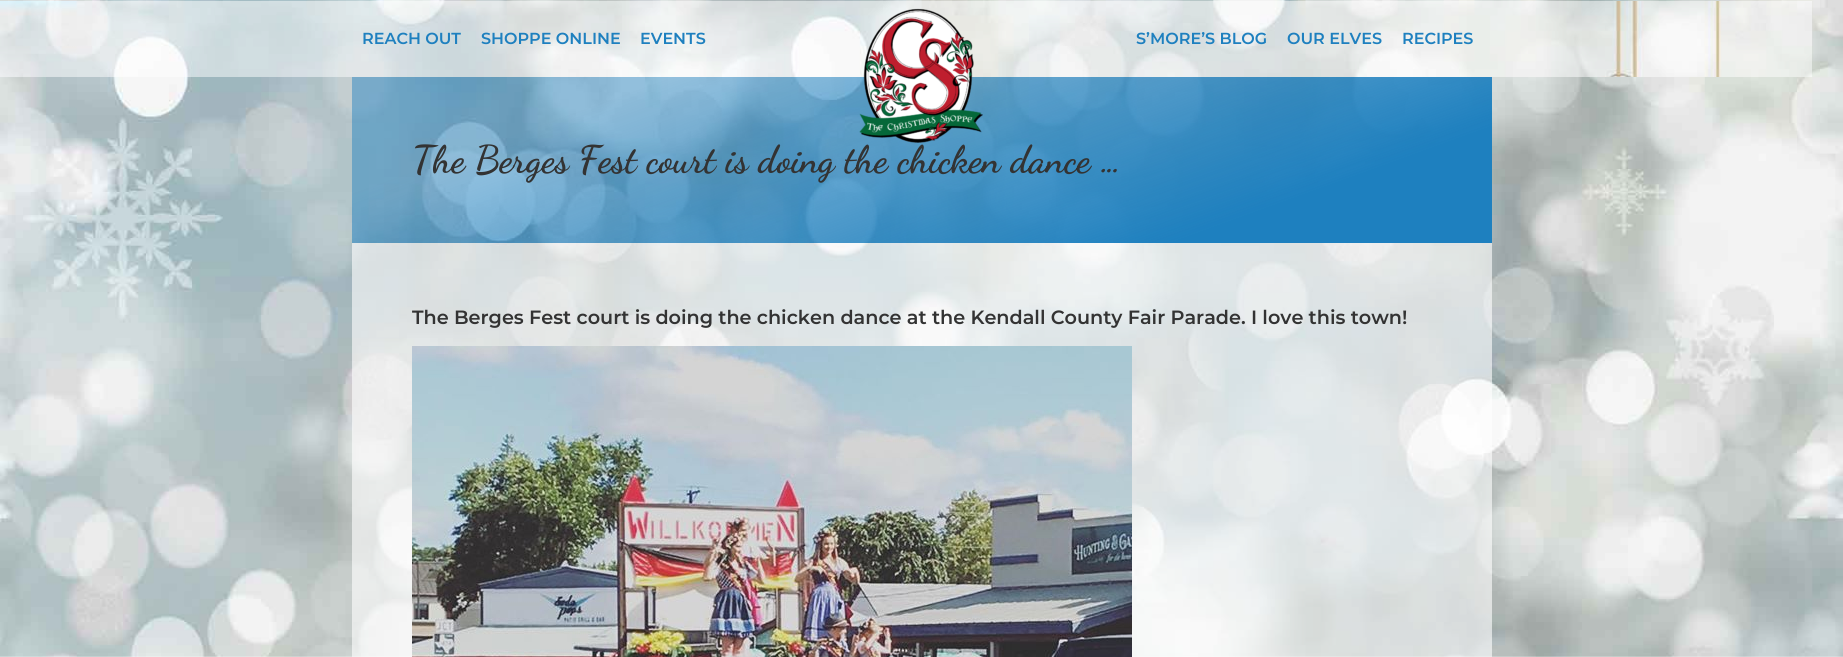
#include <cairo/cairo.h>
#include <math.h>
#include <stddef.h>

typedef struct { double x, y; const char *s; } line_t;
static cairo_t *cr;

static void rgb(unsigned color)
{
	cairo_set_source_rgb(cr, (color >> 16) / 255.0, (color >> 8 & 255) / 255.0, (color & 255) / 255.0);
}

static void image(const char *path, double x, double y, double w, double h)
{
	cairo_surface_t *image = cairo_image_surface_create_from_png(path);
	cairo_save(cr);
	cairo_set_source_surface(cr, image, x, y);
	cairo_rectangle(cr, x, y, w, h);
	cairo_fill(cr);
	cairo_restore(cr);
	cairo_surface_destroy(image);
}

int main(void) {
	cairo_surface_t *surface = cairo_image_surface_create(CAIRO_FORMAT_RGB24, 1843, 657);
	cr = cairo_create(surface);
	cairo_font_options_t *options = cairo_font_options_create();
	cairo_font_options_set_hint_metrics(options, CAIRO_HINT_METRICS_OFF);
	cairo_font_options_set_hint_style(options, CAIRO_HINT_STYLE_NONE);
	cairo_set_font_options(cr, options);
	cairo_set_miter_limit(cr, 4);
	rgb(0xffffff);
	cairo_paint(cr);
	image("img/1.png", 0, 0, 1843, 657);
	image("img/2.png", 0, 1, 1812, 76);
	image("img/3.png", 859, 8, 124, 135);
	cairo_set_source_rgba(cr, 1, 1, 1, 0.6);
	cairo_rectangle(cr, 352, 243, 1140, 414);
	cairo_fill(cr);
	image("img/4.png", 412, 346, 720, 311);
	cairo_select_font_face(cr, "Montserrat SemiBold", CAIRO_FONT_SLANT_NORMAL, CAIRO_FONT_WEIGHT_NORMAL);
	cairo_set_font_size(cr, 16);
	rgb(0x1e80bf);
	{
		static const line_t items[] = {
			{362, 44, "REACH OUT"},
			{481, 44, "SHOPPE ONLINE"},
			{640, 44, "EVENTS"},
			{1136, 44, "S’MORE’S BLOG"},
			{1287, 44, "OUR ELVES"},
			{1402, 44, "RECIPES"},
		};
		for (size_t i = 0; i < sizeof items / sizeof *items; i++) {
			cairo_move_to(cr, items[i].x, items[i].y);
			cairo_show_text(cr, items[i].s);
		}
	}
	cairo_select_font_face(cr, "Dancing Script", CAIRO_FONT_SLANT_NORMAL, CAIRO_FONT_WEIGHT_BOLD);
	cairo_set_font_size(cr, 38.4);
	rgb(0x333333);
	cairo_move_to(cr, 412, 172);
	cairo_show_text(cr, "The Berges Fest court is doing the chicken dance …");
	cairo_select_font_face(cr, "Montserrat SemiBold", CAIRO_FONT_SLANT_NORMAL, CAIRO_FONT_WEIGHT_NORMAL);
	cairo_set_font_size(cr, 19.2);
	cairo_move_to(cr, 412, 324);
	cairo_show_text(cr, "The Berges Fest court is doing the chicken dance at the Kendall County Fair Parade. I love this town!");
	cairo_surface_write_to_png(surface, "page.png");
	cairo_font_options_destroy(options);
	cairo_destroy(cr);
	cairo_surface_destroy(surface);
	return 0;
}
